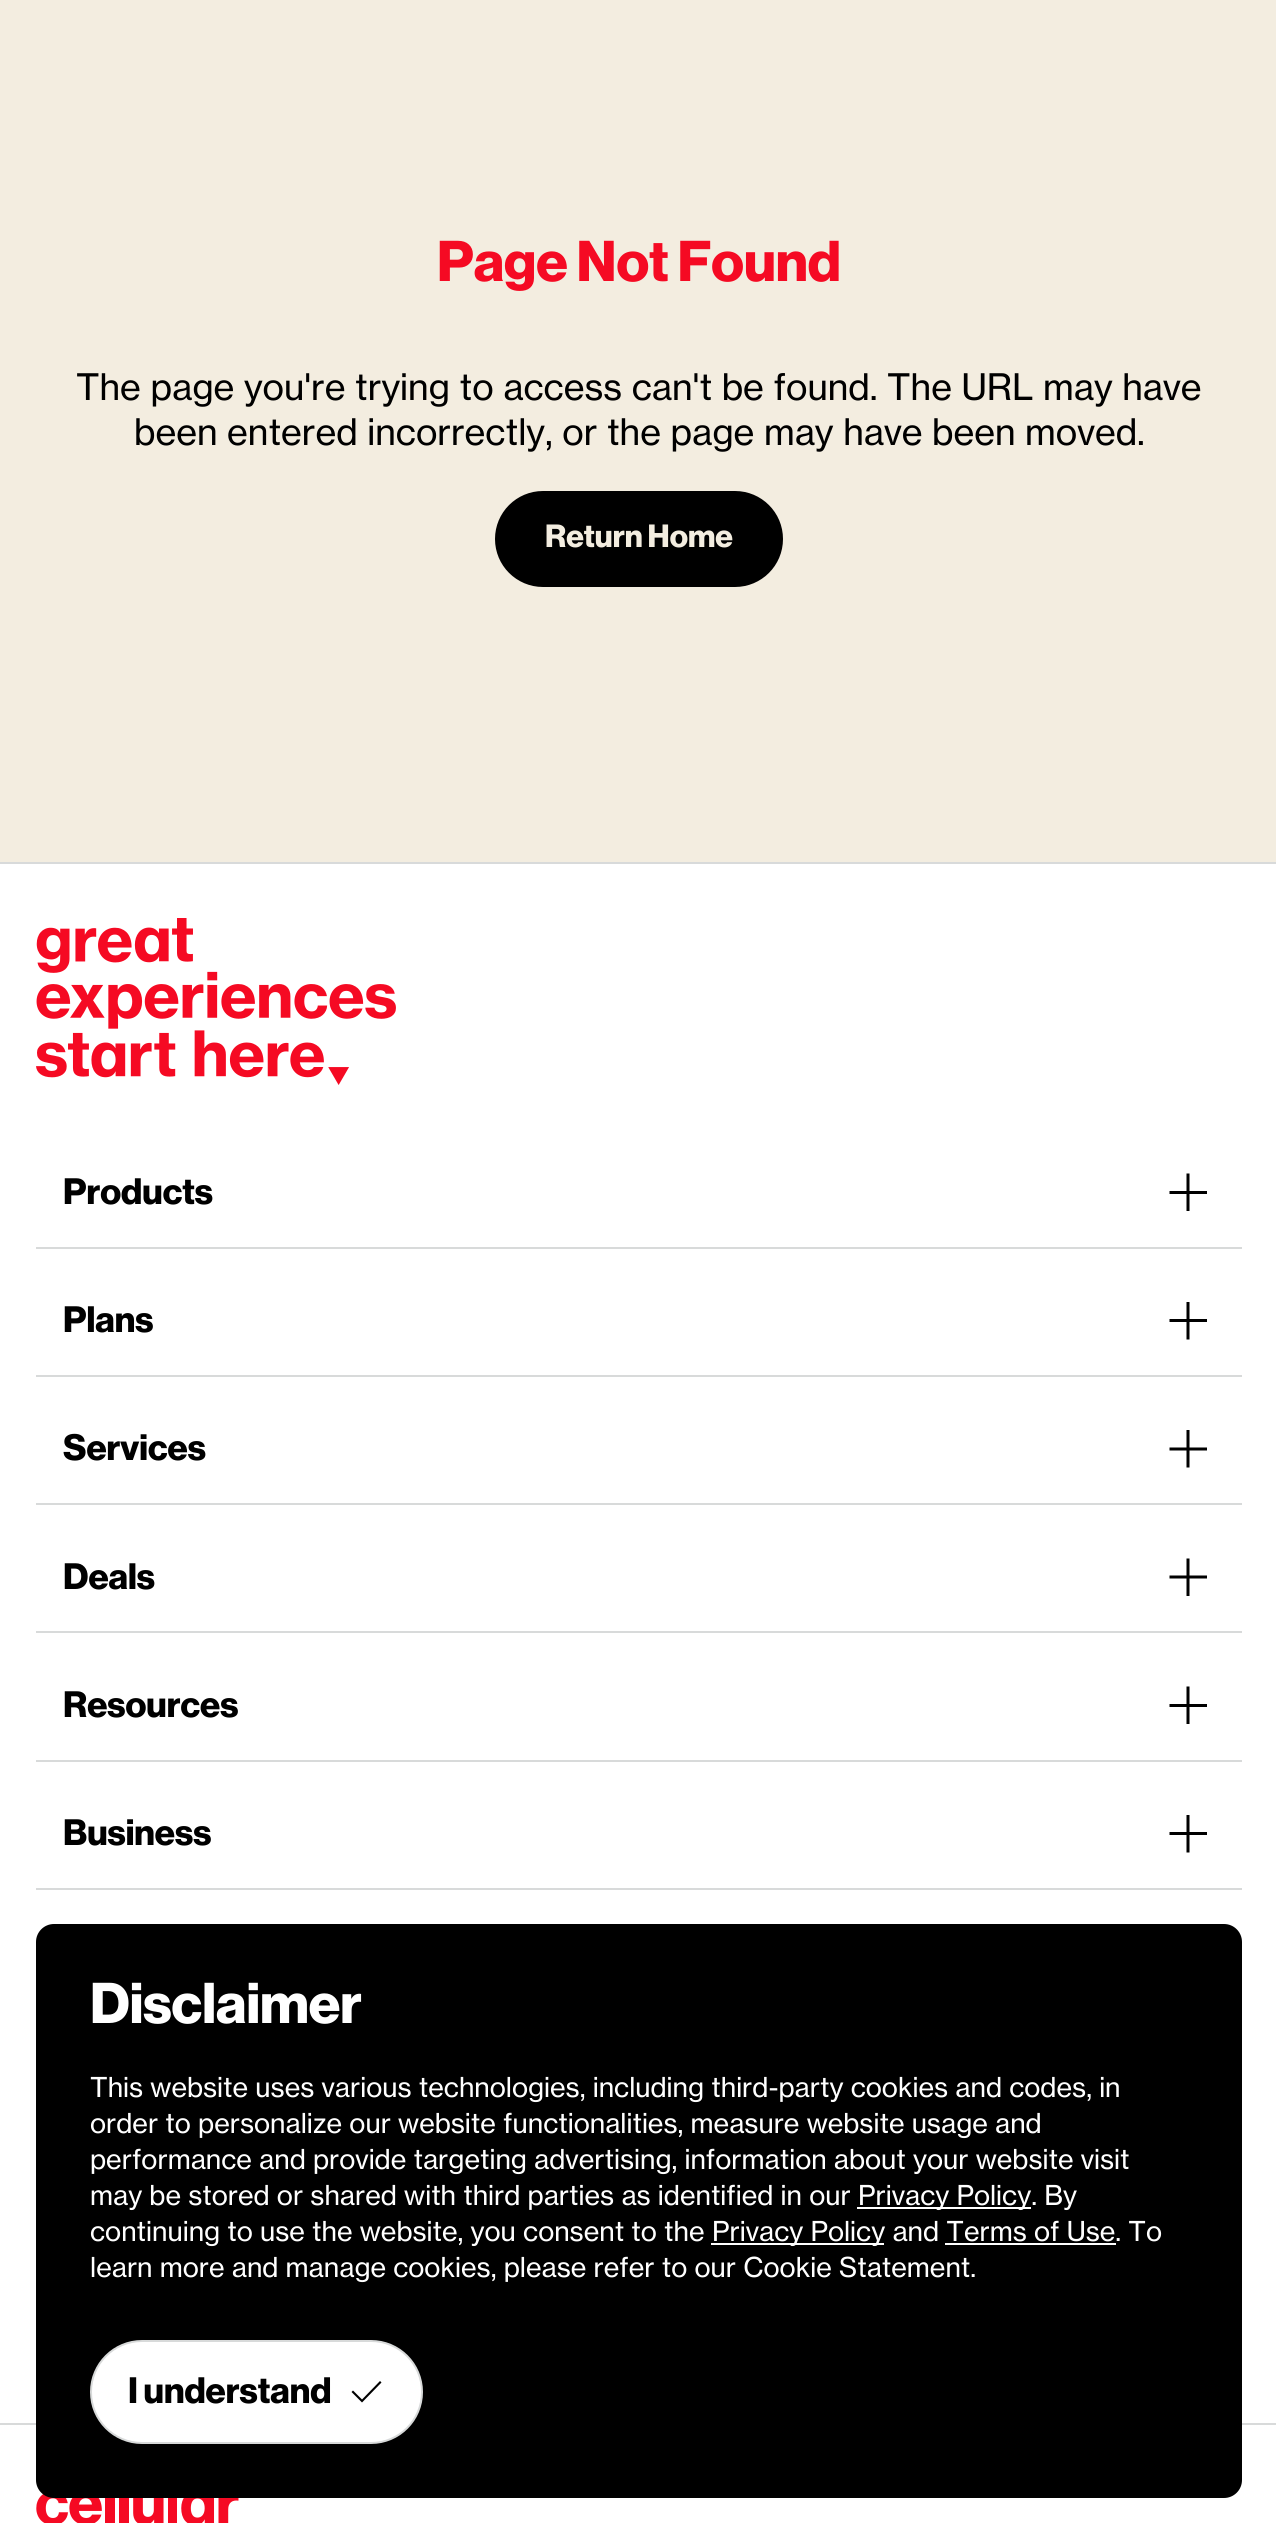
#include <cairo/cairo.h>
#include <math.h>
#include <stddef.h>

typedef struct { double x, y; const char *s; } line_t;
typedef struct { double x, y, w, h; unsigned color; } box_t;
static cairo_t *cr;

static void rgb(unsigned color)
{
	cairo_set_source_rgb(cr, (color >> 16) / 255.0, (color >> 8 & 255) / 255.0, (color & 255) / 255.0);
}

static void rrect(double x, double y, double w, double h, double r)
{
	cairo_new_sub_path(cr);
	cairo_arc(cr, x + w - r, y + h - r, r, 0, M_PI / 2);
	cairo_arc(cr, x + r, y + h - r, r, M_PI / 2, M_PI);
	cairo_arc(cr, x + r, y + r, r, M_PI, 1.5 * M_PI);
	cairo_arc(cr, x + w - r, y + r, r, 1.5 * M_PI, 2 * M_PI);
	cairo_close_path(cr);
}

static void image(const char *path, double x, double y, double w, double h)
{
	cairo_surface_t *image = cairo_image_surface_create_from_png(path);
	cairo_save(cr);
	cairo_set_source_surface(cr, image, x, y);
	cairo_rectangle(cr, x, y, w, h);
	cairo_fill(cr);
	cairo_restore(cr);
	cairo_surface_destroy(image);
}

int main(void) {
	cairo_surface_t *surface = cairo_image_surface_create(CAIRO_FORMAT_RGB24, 1276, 2523);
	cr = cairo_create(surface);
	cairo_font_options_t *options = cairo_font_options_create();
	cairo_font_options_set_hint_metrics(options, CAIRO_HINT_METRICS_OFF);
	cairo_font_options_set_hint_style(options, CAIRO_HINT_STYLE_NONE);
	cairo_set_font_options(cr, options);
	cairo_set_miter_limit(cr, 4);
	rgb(0xffffff);
	cairo_paint(cr);
	rgb(0xf3ede0);
	cairo_rectangle(cr, 0, 0, 1276, 862);
	cairo_fill(cr);
	rgb(0x000000);
	rrect(496, 492, 286, 94, 47);
	cairo_fill_preserve(cr);
	cairo_stroke(cr);
	rgb(0xd8dada);
	cairo_rectangle(cr, 0, 862, 1276, 2);
	cairo_fill(cr);
	image("img/1.png", 36, 918, 360, 167);
	cairo_rectangle(cr, 36, 1247, 1206, 2);
	cairo_fill(cr);
	rgb(0x000000);
	cairo_new_path(cr);
	cairo_move_to(cr, 1207, 1194);
	cairo_line_to(cr, 1189.5, 1194);
	cairo_line_to(cr, 1189.5, 1211);
	cairo_line_to(cr, 1186.5, 1211);
	cairo_line_to(cr, 1186.5, 1194);
	cairo_line_to(cr, 1169.5, 1194);
	cairo_line_to(cr, 1169.5, 1191);
	cairo_line_to(cr, 1186.5, 1191);
	cairo_line_to(cr, 1186.5, 1173.5);
	cairo_line_to(cr, 1189.5, 1173.5);
	cairo_line_to(cr, 1189.5, 1191);
	cairo_line_to(cr, 1207, 1191);
	cairo_close_path(cr);
	cairo_fill(cr);
	rgb(0xd8dada);
	cairo_rectangle(cr, 36, 1375, 1206, 2);
	cairo_fill(cr);
	rgb(0x000000);
	cairo_new_path(cr);
	cairo_move_to(cr, 1207, 1322);
	cairo_line_to(cr, 1189.5, 1322);
	cairo_line_to(cr, 1189.5, 1339.5);
	cairo_line_to(cr, 1186.5, 1339.5);
	cairo_line_to(cr, 1186.5, 1322);
	cairo_line_to(cr, 1169.5, 1322);
	cairo_line_to(cr, 1169.5, 1319);
	cairo_line_to(cr, 1186.5, 1319);
	cairo_line_to(cr, 1186.5, 1302);
	cairo_line_to(cr, 1189.5, 1302);
	cairo_line_to(cr, 1189.5, 1319);
	cairo_line_to(cr, 1207, 1319);
	cairo_close_path(cr);
	cairo_fill(cr);
	rgb(0xd8dada);
	cairo_rectangle(cr, 36, 1503, 1206, 2);
	cairo_fill(cr);
	rgb(0x000000);
	cairo_new_path(cr);
	cairo_move_to(cr, 1207, 1450.5);
	cairo_line_to(cr, 1189.5, 1450.5);
	cairo_line_to(cr, 1189.5, 1467.5);
	cairo_line_to(cr, 1186.5, 1467.5);
	cairo_line_to(cr, 1186.5, 1450.5);
	cairo_line_to(cr, 1169.5, 1450.5);
	cairo_line_to(cr, 1169.5, 1447.5);
	cairo_line_to(cr, 1186.5, 1447.5);
	cairo_line_to(cr, 1186.5, 1430);
	cairo_line_to(cr, 1189.5, 1430);
	cairo_line_to(cr, 1189.5, 1447.5);
	cairo_line_to(cr, 1207, 1447.5);
	cairo_close_path(cr);
	cairo_fill(cr);
	rgb(0xd8dada);
	cairo_rectangle(cr, 36, 1631, 1206, 2);
	cairo_fill(cr);
	rgb(0x000000);
	cairo_new_path(cr);
	cairo_move_to(cr, 1207, 1578.5);
	cairo_line_to(cr, 1189.5, 1578.5);
	cairo_line_to(cr, 1189.5, 1596);
	cairo_line_to(cr, 1186.5, 1596);
	cairo_line_to(cr, 1186.5, 1578.5);
	cairo_line_to(cr, 1169.5, 1578.5);
	cairo_line_to(cr, 1169.5, 1575.5);
	cairo_line_to(cr, 1186.5, 1575.5);
	cairo_line_to(cr, 1186.5, 1558.5);
	cairo_line_to(cr, 1189.5, 1558.5);
	cairo_line_to(cr, 1189.5, 1575.5);
	cairo_line_to(cr, 1207, 1575.5);
	cairo_close_path(cr);
	cairo_fill(cr);
	rgb(0xd8dada);
	cairo_rectangle(cr, 36, 1760, 1206, 2);
	cairo_fill(cr);
	rgb(0x000000);
	cairo_new_path(cr);
	cairo_move_to(cr, 1207, 1707);
	cairo_line_to(cr, 1189.5, 1707);
	cairo_line_to(cr, 1189.5, 1724);
	cairo_line_to(cr, 1186.5, 1724);
	cairo_line_to(cr, 1186.5, 1707);
	cairo_line_to(cr, 1169.5, 1707);
	cairo_line_to(cr, 1169.5, 1704);
	cairo_line_to(cr, 1186.5, 1704);
	cairo_line_to(cr, 1186.5, 1686.5);
	cairo_line_to(cr, 1189.5, 1686.5);
	cairo_line_to(cr, 1189.5, 1704);
	cairo_line_to(cr, 1207, 1704);
	cairo_close_path(cr);
	cairo_fill(cr);
	rgb(0xd8dada);
	cairo_rectangle(cr, 36, 1888, 1206, 2);
	cairo_fill(cr);
	rgb(0x000000);
	cairo_new_path(cr);
	cairo_move_to(cr, 1207, 1835);
	cairo_line_to(cr, 1189.5, 1835);
	cairo_line_to(cr, 1189.5, 1852.5);
	cairo_line_to(cr, 1186.5, 1852.5);
	cairo_line_to(cr, 1186.5, 1835);
	cairo_line_to(cr, 1169.5, 1835);
	cairo_line_to(cr, 1169.5, 1832);
	cairo_line_to(cr, 1186.5, 1832);
	cairo_line_to(cr, 1186.5, 1815);
	cairo_line_to(cr, 1189.5, 1815);
	cairo_line_to(cr, 1189.5, 1832);
	cairo_line_to(cr, 1207, 1832);
	cairo_close_path(cr);
	cairo_fill(cr);
	rgb(0xd8dada);
	cairo_rectangle(cr, 0, 2423, 1276, 2);
	cairo_fill(cr);
	image("img/2.png", 36, 2494, 203, 29);
	rgb(0x000000);
	rrect(36, 1924, 1206, 574, 18);
	cairo_fill(cr);
	{
		static const box_t items[] = {
			{857, 2207, 174, 2, 0xffffff},
			{711, 2243, 173, 2, 0xffffff},
			{945, 2243, 171, 2, 0xffffff},
		};
		for (size_t i = 0; i < sizeof items / sizeof *items; i++) {
			rgb(items[i].color);
			cairo_rectangle(cr, items[i].x, items[i].y, items[i].w, items[i].h);
			cairo_fill(cr);
		}
	}
	rrect(91, 2341, 331, 102, 51);
	cairo_fill_preserve(cr);
	rgb(0xd8dada);
	cairo_stroke(cr);
	rgb(0x000000);
	cairo_new_path(cr);
	cairo_move_to(cr, 381.5, 2382.5);
	cairo_line_to(cr, 362, 2402.5);
	cairo_line_to(cr, 351.5, 2392);
	cairo_line_to(cr, 353, 2390.5);
	cairo_line_to(cr, 362, 2399.5);
	cairo_line_to(cr, 380, 2381);
	cairo_close_path(cr);
	cairo_fill(cr);
	cairo_select_font_face(cr, "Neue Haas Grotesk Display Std", CAIRO_FONT_SLANT_NORMAL, CAIRO_FONT_WEIGHT_BOLD);
	cairo_set_font_size(cr, 56.25);
	rgb(0xf50a23);
	cairo_move_to(cr, 437, 281);
	cairo_show_text(cr, "Page Not Found");
	cairo_select_font_face(cr, "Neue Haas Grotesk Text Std", CAIRO_FONT_SLANT_NORMAL, CAIRO_FONT_WEIGHT_NORMAL);
	cairo_set_font_size(cr, 36);
	rgb(0x000000);
	cairo_move_to(cr, 76, 400);
	cairo_show_text(cr, "The page you're trying to access can't be found. The URL may have");
	cairo_move_to(cr, 134, 445);
	cairo_show_text(cr, "been entered incorrectly, or the page may have been moved.");
	cairo_select_font_face(cr, "Neue Haas Grotesk Display Std", CAIRO_FONT_SLANT_NORMAL, CAIRO_FONT_WEIGHT_BOLD);
	cairo_set_font_size(cr, 31.5);
	rgb(0xf3ede0);
	cairo_move_to(cr, 545, 547);
	cairo_show_text(cr, "Return Home");
	cairo_set_font_size(cr, 36);
	rgb(0x000000);
	{
		static const line_t items[] = {
			{63, 1204, "Products"},
			{63, 1332, "Plans"},
			{63, 1460, "Services"},
			{63, 1589, "Deals"},
			{63, 1717, "Resources"},
			{63, 1845, "Business"},
		};
		for (size_t i = 0; i < sizeof items / sizeof *items; i++) {
			cairo_move_to(cr, items[i].x, items[i].y);
			cairo_show_text(cr, items[i].s);
		}
	}
	cairo_set_font_size(cr, 56.25);
	rgb(0xffffff);
	cairo_move_to(cr, 90, 2023);
	cairo_show_text(cr, "Disclaimer");
	cairo_select_font_face(cr, "Neue Haas Grotesk Text Std", CAIRO_FONT_SLANT_NORMAL, CAIRO_FONT_WEIGHT_NORMAL);
	cairo_set_font_size(cr, 27);
	{
		static const line_t items[] = {
			{90, 2097, "This website uses various technologies, including third-party cookies and codes, in"},
			{90, 2133, "order to personalize our website functionalities, measure website usage and"},
			{90, 2169, "performance and provide targeting advertising, information about your website visit"},
			{90, 2205, "may be stored or shared with third parties as identified in our"},
			{858, 2205, "Privacy Policy. By"},
			{90, 2241, "continuing to use the website, you consent to the"},
			{712, 2241, "Privacy Policy and Terms of Use. To"},
			{90, 2277, "learn more and manage cookies, please refer to our Cookie Statement."},
		};
		for (size_t i = 0; i < sizeof items / sizeof *items; i++) {
			cairo_move_to(cr, items[i].x, items[i].y);
			cairo_show_text(cr, items[i].s);
		}
	}
	cairo_select_font_face(cr, "Neue Haas Grotesk Display Std", CAIRO_FONT_SLANT_NORMAL, CAIRO_FONT_WEIGHT_BOLD);
	cairo_set_font_size(cr, 36);
	rgb(0x000000);
	cairo_move_to(cr, 128, 2403);
	cairo_show_text(cr, "I understand");
	cairo_surface_write_to_png(surface, "page.png");
	cairo_font_options_destroy(options);
	cairo_destroy(cr);
	cairo_surface_destroy(surface);
	return 0;
}
